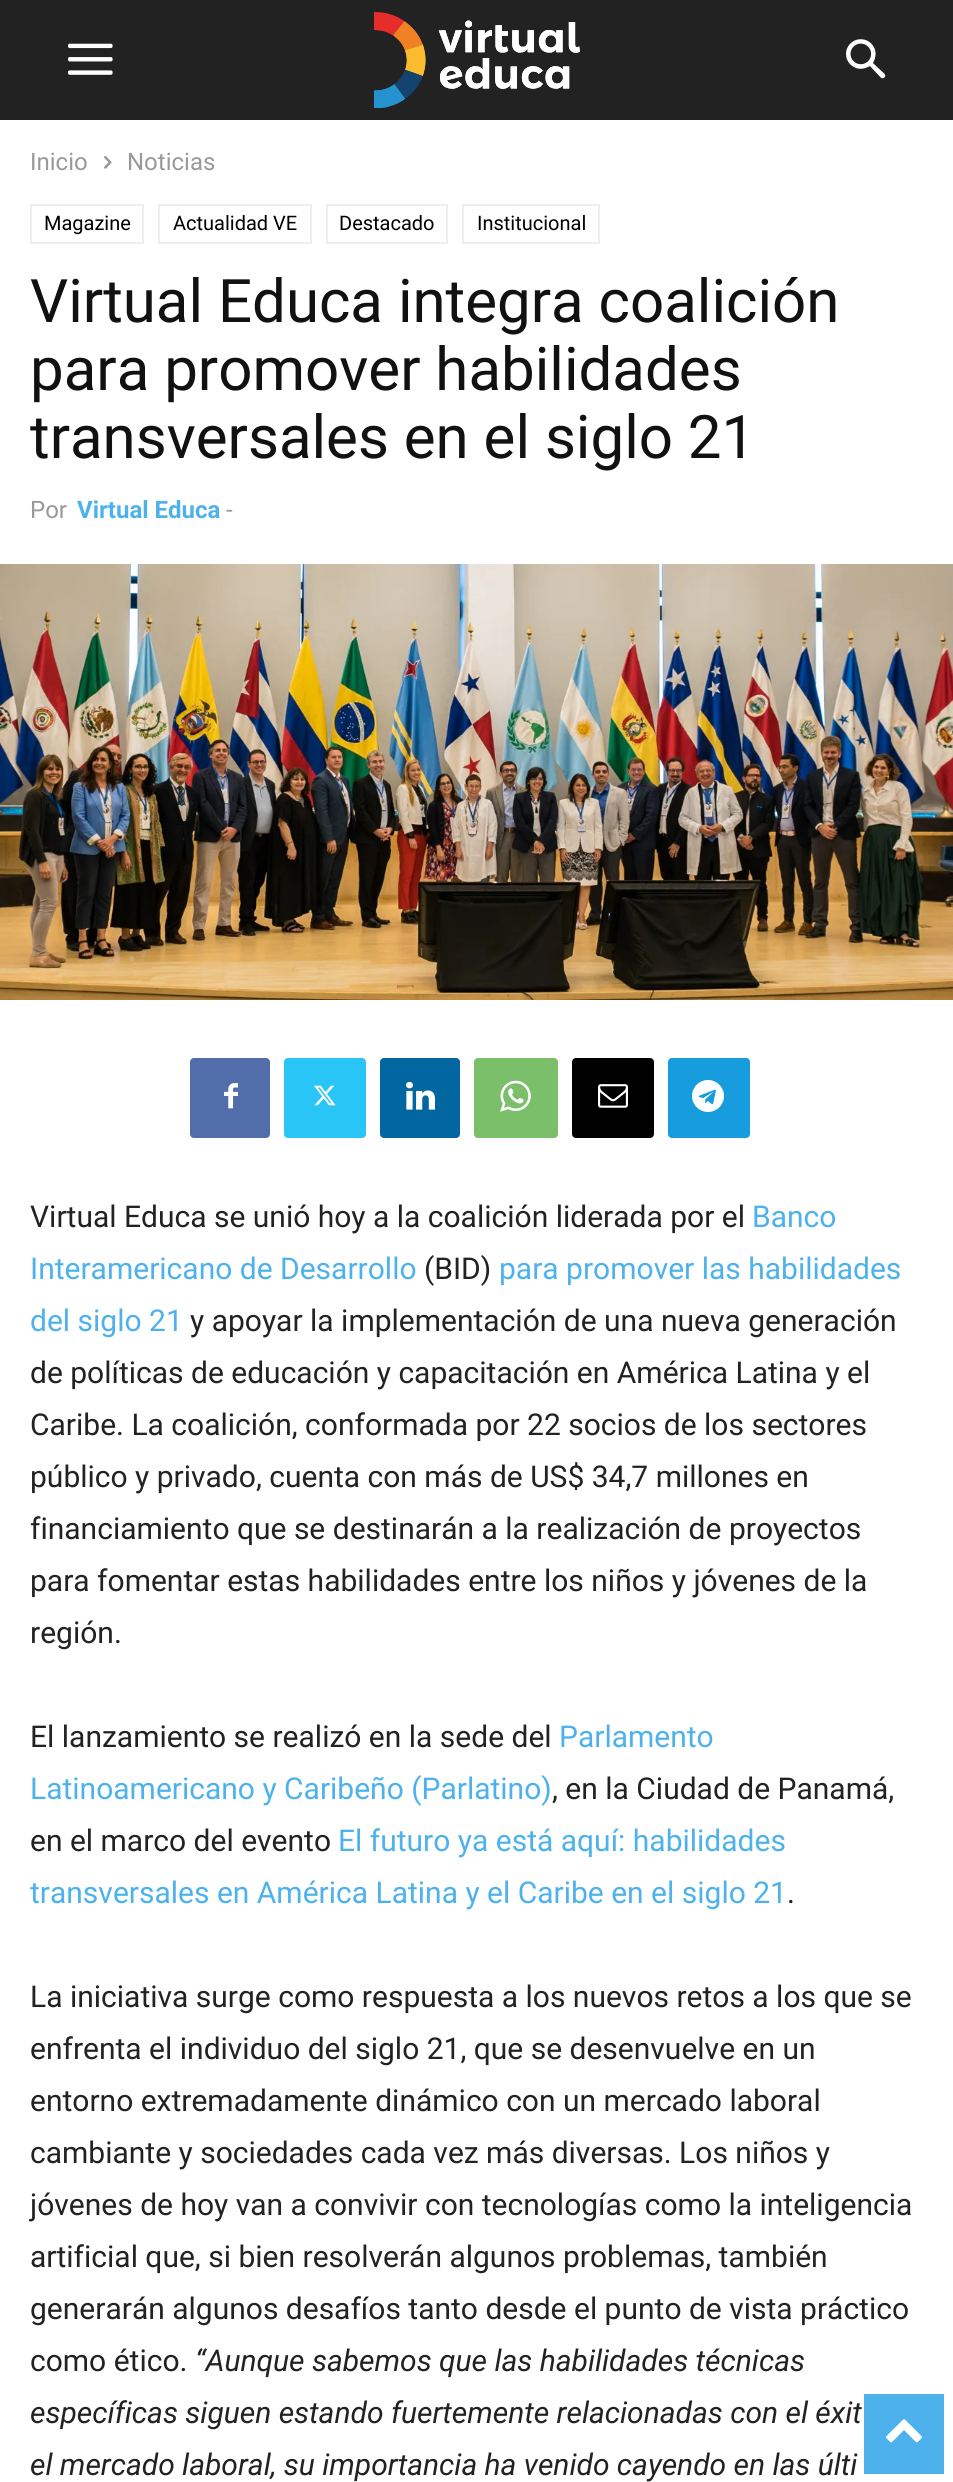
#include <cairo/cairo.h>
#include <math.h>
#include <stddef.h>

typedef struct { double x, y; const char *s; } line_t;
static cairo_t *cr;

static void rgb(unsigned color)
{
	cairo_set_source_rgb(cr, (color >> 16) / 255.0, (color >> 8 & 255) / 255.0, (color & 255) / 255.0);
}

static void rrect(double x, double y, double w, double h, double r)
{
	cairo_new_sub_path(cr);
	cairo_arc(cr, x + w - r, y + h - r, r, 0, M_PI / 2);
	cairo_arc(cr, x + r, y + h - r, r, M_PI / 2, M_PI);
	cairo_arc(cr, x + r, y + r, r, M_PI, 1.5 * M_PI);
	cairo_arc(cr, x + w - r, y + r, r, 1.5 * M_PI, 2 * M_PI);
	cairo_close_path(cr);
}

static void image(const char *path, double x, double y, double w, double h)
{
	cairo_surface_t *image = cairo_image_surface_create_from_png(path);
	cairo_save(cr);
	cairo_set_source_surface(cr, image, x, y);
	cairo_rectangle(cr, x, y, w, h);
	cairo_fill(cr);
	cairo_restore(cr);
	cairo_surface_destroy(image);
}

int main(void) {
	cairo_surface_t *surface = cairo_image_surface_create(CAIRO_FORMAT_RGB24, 953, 2482);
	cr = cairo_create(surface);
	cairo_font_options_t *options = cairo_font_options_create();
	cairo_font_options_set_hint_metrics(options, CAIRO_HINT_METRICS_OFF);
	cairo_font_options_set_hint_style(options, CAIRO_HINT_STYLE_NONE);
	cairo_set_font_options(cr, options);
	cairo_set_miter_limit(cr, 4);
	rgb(0xffffff);
	cairo_paint(cr);
	rgb(0x222222);
	cairo_rectangle(cr, 0, 0, 953, 120);
	cairo_fill(cr);
	image("img/1.png", 68, 43, 45, 32);
	image("img/2.png", 374, 12, 206, 96);
	image("img/3.png", 846, 39, 40, 40);
	image("img/4.png", 104, 156, 8, 13);
	cairo_rectangle(cr, 31, 205, 112, 38);
	rgb(0xededed);
	cairo_stroke(cr);
	cairo_rectangle(cr, 159, 205, 152, 38);
	cairo_stroke(cr);
	cairo_rectangle(cr, 327, 205, 120, 38);
	cairo_stroke(cr);
	cairo_rectangle(cr, 463, 205, 136, 38);
	cairo_stroke(cr);
	image("img/5.png", 0, 564, 953, 436);
	rgb(0x516eab);
	rrect(190, 1058, 80, 80, 4);
	cairo_fill(cr);
	image("img/6.png", 224, 1083, 14, 26);
	rgb(0x29c5f6);
	rrect(284, 1058, 82, 80, 4);
	cairo_fill(cr);
	image("img/7.png", 314, 1085, 22, 21);
	rgb(0x0266a0);
	rrect(380, 1058, 80, 80, 4);
	cairo_fill(cr);
	image("img/8.png", 406, 1081, 29, 29);
	rgb(0x7bbf6a);
	rrect(474, 1058, 84, 80, 4);
	cairo_fill(cr);
	image("img/9.png", 500, 1080, 31, 32);
	rgb(0x000000);
	rrect(572, 1058, 82, 80, 4);
	cairo_fill(cr);
	image("img/10.png", 598, 1084, 30, 24);
	rgb(0x179cde);
	rrect(668, 1058, 82, 80, 4);
	cairo_fill(cr);
	image("img/11.png", 692, 1080, 32, 32);
	rgb(0x4db2ec);
	cairo_rectangle(cr, 864, 2394, 80, 80);
	cairo_fill(cr);
	image("img/12.png", 886, 2419, 36, 24);
	cairo_select_font_face(cr, "Roboto", CAIRO_FONT_SLANT_NORMAL, CAIRO_FONT_WEIGHT_NORMAL);
	cairo_set_font_size(cr, 24);
	rgb(0x999999);
	cairo_move_to(cr, 30, 170);
	cairo_show_text(cr, "Inicio");
	cairo_move_to(cr, 127, 170);
	cairo_show_text(cr, "Noticias");
	cairo_set_font_size(cr, 20);
	rgb(0x000000);
	{
		static const line_t items[] = {
			{44, 230, "Magazine"},
			{173, 230, "Actualidad VE"},
			{339, 230, "Destacado"},
			{477, 230, "Institucional"},
		};
		for (size_t i = 0; i < sizeof items / sizeof *items; i++) {
			cairo_move_to(cr, items[i].x, items[i].y);
			cairo_show_text(cr, items[i].s);
		}
	}
	cairo_set_font_size(cr, 60);
	rgb(0x111111);
	{
		static const line_t items[] = {
			{30, 322, "Virtual Educa integra coalición"},
			{30, 390, "para promover habilidades"},
			{30, 458, "transversales en el siglo 21"},
		};
		for (size_t i = 0; i < sizeof items / sizeof *items; i++) {
			cairo_move_to(cr, items[i].x, items[i].y);
			cairo_show_text(cr, items[i].s);
		}
	}
	cairo_set_font_size(cr, 24);
	rgb(0x999999);
	cairo_move_to(cr, 30, 518);
	cairo_show_text(cr, "Por");
	cairo_select_font_face(cr, "Roboto", CAIRO_FONT_SLANT_NORMAL, CAIRO_FONT_WEIGHT_BOLD);
	rgb(0x4db2ec);
	cairo_move_to(cr, 77, 518);
	cairo_show_text(cr, "Virtual Educa");
	cairo_select_font_face(cr, "Roboto", CAIRO_FONT_SLANT_NORMAL, CAIRO_FONT_WEIGHT_NORMAL);
	rgb(0x999999);
	cairo_move_to(cr, 226, 518);
	cairo_show_text(cr, "-");
	cairo_set_font_size(cr, 30);
	rgb(0x222222);
	cairo_move_to(cr, 30, 1227);
	cairo_show_text(cr, "Virtual Educa se unió hoy a la coalición liderada por el");
	rgb(0x4db2ec);
	cairo_move_to(cr, 752, 1227);
	cairo_show_text(cr, "Banco");
	cairo_move_to(cr, 30, 1279);
	cairo_show_text(cr, "Interamericano de Desarrollo");
	rgb(0x222222);
	cairo_move_to(cr, 424, 1279);
	cairo_show_text(cr, "(BID)");
	rgb(0x4db2ec);
	cairo_move_to(cr, 499, 1279);
	cairo_show_text(cr, "para promover las habilidades");
	cairo_move_to(cr, 30, 1331);
	cairo_show_text(cr, "del siglo 21");
	rgb(0x222222);
	{
		static const line_t items[] = {
			{190, 1331, "y apoyar la implementación de una nueva generación"},
			{30, 1383, "de políticas de educación y capacitación en América Latina y el"},
			{30, 1435, "Caribe. La coalición, conformada por 22 socios de los sectores"},
			{30, 1487, "público y privado, cuenta con más de US$ 34,7 millones en"},
			{30, 1539, "financiamiento que se destinarán a la realización de proyectos"},
			{30, 1591, "para fomentar estas habilidades entre los niños y jóvenes de la"},
			{30, 1643, "región."},
			{30, 1747, "El lanzamiento se realizó en la sede del"},
		};
		for (size_t i = 0; i < sizeof items / sizeof *items; i++) {
			cairo_move_to(cr, items[i].x, items[i].y);
			cairo_show_text(cr, items[i].s);
		}
	}
	rgb(0x4db2ec);
	cairo_move_to(cr, 559, 1747);
	cairo_show_text(cr, "Parlamento");
	cairo_move_to(cr, 30, 1799);
	cairo_show_text(cr, "Latinoamericano y Caribeño (Parlatino)");
	rgb(0x222222);
	cairo_move_to(cr, 552, 1799);
	cairo_show_text(cr, ", en la Ciudad de Panamá,");
	cairo_move_to(cr, 30, 1851);
	cairo_show_text(cr, "en el marco del evento");
	rgb(0x4db2ec);
	cairo_move_to(cr, 338, 1851);
	cairo_show_text(cr, "El futuro ya está aquí: habilidades");
	cairo_move_to(cr, 30, 1903);
	cairo_show_text(cr, "transversales en América Latina y el Caribe en el siglo 21");
	rgb(0x222222);
	{
		static const line_t items[] = {
			{787, 1903, "."},
			{30, 2007, "La iniciativa surge como respuesta a los nuevos retos a los que se"},
			{30, 2059, "enfrenta el individuo del siglo 21, que se desenvuelve en un"},
			{30, 2111, "entorno extremadamente dinámico con un mercado laboral"},
			{30, 2163, "cambiante y sociedades cada vez más diversas. Los niños y"},
			{30, 2215, "jóvenes de hoy van a convivir con tecnologías como la inteligencia"},
			{30, 2267, "artificial que, si bien resolverán algunos problemas, también"},
			{30, 2319, "generarán algunos desafíos tanto desde el punto de vista práctico"},
			{30, 2371, "como ético."},
		};
		for (size_t i = 0; i < sizeof items / sizeof *items; i++) {
			cairo_move_to(cr, items[i].x, items[i].y);
			cairo_show_text(cr, items[i].s);
		}
	}
	cairo_select_font_face(cr, "Roboto", CAIRO_FONT_SLANT_ITALIC, CAIRO_FONT_WEIGHT_NORMAL);
	{
		static const line_t items[] = {
			{195, 2371, "“Aunque sabemos que las habilidades técnicas"},
			{30, 2423, "específicas siguen estando fuertemente relacionadas con el éxit"},
			{30, 2475, "el mercado laboral, su importancia ha venido cayendo en las últi"},
		};
		for (size_t i = 0; i < sizeof items / sizeof *items; i++) {
			cairo_move_to(cr, items[i].x, items[i].y);
			cairo_show_text(cr, items[i].s);
		}
	}
	cairo_surface_write_to_png(surface, "page.png");
	cairo_font_options_destroy(options);
	cairo_destroy(cr);
	cairo_surface_destroy(surface);
	return 0;
}
